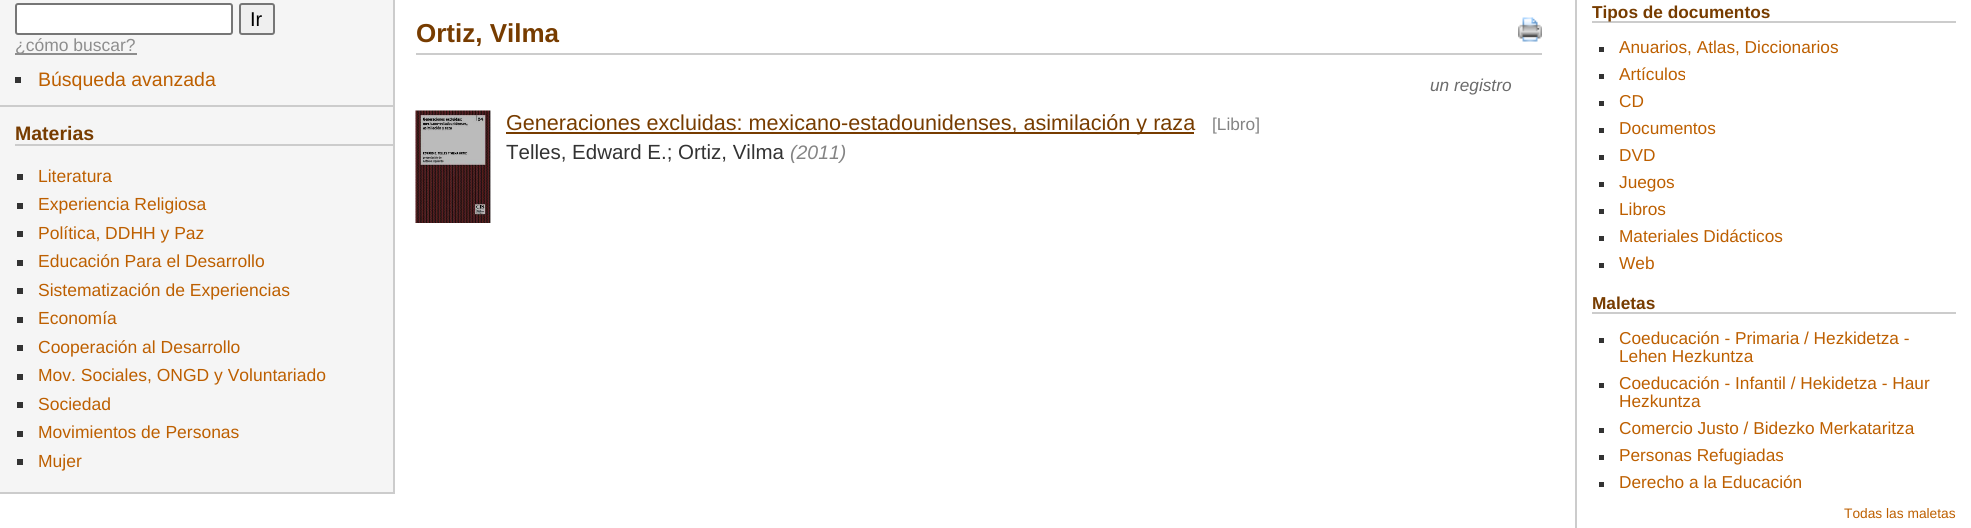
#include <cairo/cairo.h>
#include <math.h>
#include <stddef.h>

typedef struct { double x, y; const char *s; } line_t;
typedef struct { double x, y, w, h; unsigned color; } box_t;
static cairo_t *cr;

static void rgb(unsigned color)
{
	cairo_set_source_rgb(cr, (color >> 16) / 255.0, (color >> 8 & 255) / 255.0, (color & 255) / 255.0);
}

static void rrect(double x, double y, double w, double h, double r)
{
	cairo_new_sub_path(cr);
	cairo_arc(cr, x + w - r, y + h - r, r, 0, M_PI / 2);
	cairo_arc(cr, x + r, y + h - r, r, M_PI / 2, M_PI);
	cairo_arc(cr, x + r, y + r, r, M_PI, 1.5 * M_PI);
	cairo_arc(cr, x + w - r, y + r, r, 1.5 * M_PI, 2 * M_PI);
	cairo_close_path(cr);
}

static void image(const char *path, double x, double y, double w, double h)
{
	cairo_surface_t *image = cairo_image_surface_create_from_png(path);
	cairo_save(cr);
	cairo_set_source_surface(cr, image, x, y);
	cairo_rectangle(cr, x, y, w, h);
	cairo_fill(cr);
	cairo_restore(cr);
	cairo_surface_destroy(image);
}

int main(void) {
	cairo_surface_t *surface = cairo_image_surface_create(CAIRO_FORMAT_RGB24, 1971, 528);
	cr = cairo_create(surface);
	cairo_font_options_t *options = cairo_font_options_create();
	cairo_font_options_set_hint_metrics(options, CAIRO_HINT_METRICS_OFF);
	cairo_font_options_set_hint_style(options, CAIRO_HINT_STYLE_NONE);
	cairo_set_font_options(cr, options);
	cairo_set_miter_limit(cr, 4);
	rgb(0xffffff);
	cairo_paint(cr);
	{
		static const box_t items[] = {
			{0, 0, 393, 492, 0xf5f5f5},
			{393, 0, 2, 494, 0xcccccc},
			{0, 492, 395, 2, 0xcccccc},
			{0, 105, 393, 2, 0xcccccc},
		};
		for (size_t i = 0; i < sizeof items / sizeof *items; i++) {
			rgb(items[i].color);
			cairo_rectangle(cr, items[i].x, items[i].y, items[i].w, items[i].h);
			cairo_fill(cr);
		}
	}
	rgb(0xffffff);
	rrect(16, 4, 216, 30, 2);
	cairo_fill_preserve(cr);
	rgb(0x767676);
	cairo_stroke(cr);
	rgb(0xefefef);
	rrect(240, 4, 34, 30, 2);
	cairo_fill_preserve(cr);
	rgb(0x767676);
	cairo_stroke(cr);
	{
		static const box_t items[] = {
			{15, 53, 122, 2, 0x8d8d8d},
			{15, 77, 6, 6, 0x333333},
			{15, 144, 378, 2, 0xcccccc},
			{17, 174, 6, 6, 0x333333},
			{17, 203, 6, 6, 0x333333},
			{17, 231, 6, 6, 0x333333},
			{17, 260, 6, 6, 0x333333},
			{17, 288, 6, 6, 0x333333},
			{17, 317, 6, 6, 0x333333},
			{17, 345, 6, 6, 0x333333},
			{17, 374, 6, 6, 0x333333},
			{17, 402, 6, 6, 0x333333},
			{17, 431, 6, 6, 0x333333},
			{17, 459, 6, 6, 0x333333},
			{416, 53, 1126, 2, 0xcccccc},
		};
		for (size_t i = 0; i < sizeof items / sizeof *items; i++) {
			rgb(items[i].color);
			cairo_rectangle(cr, items[i].x, items[i].y, items[i].w, items[i].h);
			cairo_fill(cr);
		}
	}
	image("img/1.png", 1518, 17, 24, 25);
	image("img/2.png", 415, 110, 76, 113);
	{
		static const box_t items[] = {
			{506, 132, 688, 2, 0x773c00},
			{1575, 0, 2, 528, 0xcccccc},
			{1592, 21, 364, 2, 0xcccccc},
			{1599, 47, 5, 5, 0x333333},
			{1599, 74, 5, 5, 0x333333},
			{1599, 101, 5, 5, 0x333333},
			{1599, 128, 5, 5, 0x333333},
			{1599, 155, 5, 5, 0x333333},
			{1599, 182, 5, 5, 0x333333},
			{1599, 209, 5, 5, 0x333333},
			{1599, 236, 5, 5, 0x333333},
			{1599, 263, 5, 5, 0x333333},
			{1592, 312, 364, 2, 0xcccccc},
			{1599, 338, 5, 5, 0x333333},
			{1599, 383, 5, 5, 0x333333},
			{1599, 428, 5, 5, 0x333333},
			{1599, 455, 5, 5, 0x333333},
			{1599, 482, 5, 5, 0x333333},
		};
		for (size_t i = 0; i < sizeof items / sizeof *items; i++) {
			rgb(items[i].color);
			cairo_rectangle(cr, items[i].x, items[i].y, items[i].w, items[i].h);
			cairo_fill(cr);
		}
	}
	cairo_select_font_face(cr, "Liberation Sans", CAIRO_FONT_SLANT_NORMAL, CAIRO_FONT_WEIGHT_NORMAL);
	cairo_set_font_size(cr, 20);
	rgb(0x000000);
	cairo_move_to(cr, 250, 26);
	cairo_show_text(cr, "Ir");
	cairo_set_font_size(cr, 17.5);
	rgb(0x8d8d8d);
	cairo_move_to(cr, 15, 51);
	cairo_show_text(cr, "¿cómo buscar?");
	cairo_set_font_size(cr, 19.5);
	rgb(0xbd5f00);
	cairo_move_to(cr, 38, 86);
	cairo_show_text(cr, "Búsqueda avanzada");
	cairo_select_font_face(cr, "Liberation Sans", CAIRO_FONT_SLANT_NORMAL, CAIRO_FONT_WEIGHT_BOLD);
	rgb(0x773c00);
	cairo_move_to(cr, 15, 140);
	cairo_show_text(cr, "Materias");
	cairo_select_font_face(cr, "Liberation Sans", CAIRO_FONT_SLANT_NORMAL, CAIRO_FONT_WEIGHT_NORMAL);
	cairo_set_font_size(cr, 17.5);
	rgb(0xbd5f00);
	{
		static const line_t items[] = {
			{38, 182, "Literatura"},
			{38, 210, "Experiencia Religiosa"},
			{38, 239, "Política, DDHH y Paz"},
			{38, 267, "Educación Para el Desarrollo"},
			{38, 296, "Sistematización de Experiencias"},
			{38, 324, "Economía"},
			{38, 353, "Cooperación al Desarrollo"},
			{38, 381, "Mov. Sociales, ONGD y Voluntariado"},
			{38, 410, "Sociedad"},
			{38, 438, "Movimientos de Personas"},
			{38, 467, "Mujer"},
		};
		for (size_t i = 0; i < sizeof items / sizeof *items; i++) {
			cairo_move_to(cr, items[i].x, items[i].y);
			cairo_show_text(cr, items[i].s);
		}
	}
	cairo_select_font_face(cr, "Liberation Sans", CAIRO_FONT_SLANT_NORMAL, CAIRO_FONT_WEIGHT_BOLD);
	cairo_set_font_size(cr, 26);
	rgb(0x773c00);
	cairo_move_to(cr, 416, 42);
	cairo_show_text(cr, "Ortiz, Vilma");
	cairo_select_font_face(cr, "Liberation Sans", CAIRO_FONT_SLANT_ITALIC, CAIRO_FONT_WEIGHT_NORMAL);
	cairo_set_font_size(cr, 17.25);
	rgb(0x6b6b6b);
	cairo_move_to(cr, 1430, 91);
	cairo_show_text(cr, "un registro");
	cairo_select_font_face(cr, "Liberation Sans", CAIRO_FONT_SLANT_NORMAL, CAIRO_FONT_WEIGHT_NORMAL);
	cairo_set_font_size(cr, 21.6);
	rgb(0x773c00);
	cairo_move_to(cr, 506, 130);
	cairo_show_text(cr, "Generaciones excluidas: mexicano-estadounidenses, asimilación y raza");
	cairo_set_font_size(cr, 17.25);
	rgb(0x848484);
	cairo_move_to(cr, 1212, 130);
	cairo_show_text(cr, "[Libro]");
	cairo_set_font_size(cr, 20.5);
	rgb(0x333333);
	cairo_move_to(cr, 506, 159);
	cairo_show_text(cr, "Telles, Edward E.; Ortiz, Vilma");
	cairo_select_font_face(cr, "Liberation Sans", CAIRO_FONT_SLANT_ITALIC, CAIRO_FONT_WEIGHT_NORMAL);
	cairo_set_font_size(cr, 19.5);
	rgb(0x848484);
	cairo_move_to(cr, 790, 159);
	cairo_show_text(cr, "(2011)");
	cairo_select_font_face(cr, "Liberation Sans", CAIRO_FONT_SLANT_NORMAL, CAIRO_FONT_WEIGHT_BOLD);
	cairo_set_font_size(cr, 17.25);
	rgb(0x773c00);
	cairo_move_to(cr, 1592, 18);
	cairo_show_text(cr, "Tipos de documentos");
	cairo_select_font_face(cr, "Liberation Sans", CAIRO_FONT_SLANT_NORMAL, CAIRO_FONT_WEIGHT_NORMAL);
	rgb(0xbd5f00);
	{
		static const line_t items[] = {
			{1619, 53, "Anuarios, Atlas, Diccionarios"},
			{1619, 80, "Artículos"},
			{1619, 107, "CD"},
			{1619, 134, "Documentos"},
			{1619, 161, "DVD"},
			{1619, 188, "Juegos"},
			{1619, 215, "Libros"},
			{1619, 242, "Materiales Didácticos"},
			{1619, 269, "Web"},
		};
		for (size_t i = 0; i < sizeof items / sizeof *items; i++) {
			cairo_move_to(cr, items[i].x, items[i].y);
			cairo_show_text(cr, items[i].s);
		}
	}
	cairo_select_font_face(cr, "Liberation Sans", CAIRO_FONT_SLANT_NORMAL, CAIRO_FONT_WEIGHT_BOLD);
	rgb(0x773c00);
	cairo_move_to(cr, 1592, 309);
	cairo_show_text(cr, "Maletas");
	cairo_select_font_face(cr, "Liberation Sans", CAIRO_FONT_SLANT_NORMAL, CAIRO_FONT_WEIGHT_NORMAL);
	rgb(0xbd5f00);
	{
		static const line_t items[] = {
			{1619, 344, "Coeducación - Primaria / Hezkidetza -"},
			{1619, 362, "Lehen Hezkuntza"},
			{1619, 389, "Coeducación - Infantil / Hekidetza - Haur"},
			{1619, 407, "Hezkuntza"},
			{1619, 434, "Comercio Justo / Bidezko Merkataritza"},
			{1619, 461, "Personas Refugiadas"},
			{1619, 488, "Derecho a la Educación"},
		};
		for (size_t i = 0; i < sizeof items / sizeof *items; i++) {
			cairo_move_to(cr, items[i].x, items[i].y);
			cairo_show_text(cr, items[i].s);
		}
	}
	cairo_set_font_size(cr, 13.75);
	cairo_move_to(cr, 1844, 518);
	cairo_show_text(cr, "Todas las maletas");
	cairo_surface_write_to_png(surface, "page.png");
	cairo_font_options_destroy(options);
	cairo_destroy(cr);
	cairo_surface_destroy(surface);
	return 0;
}
